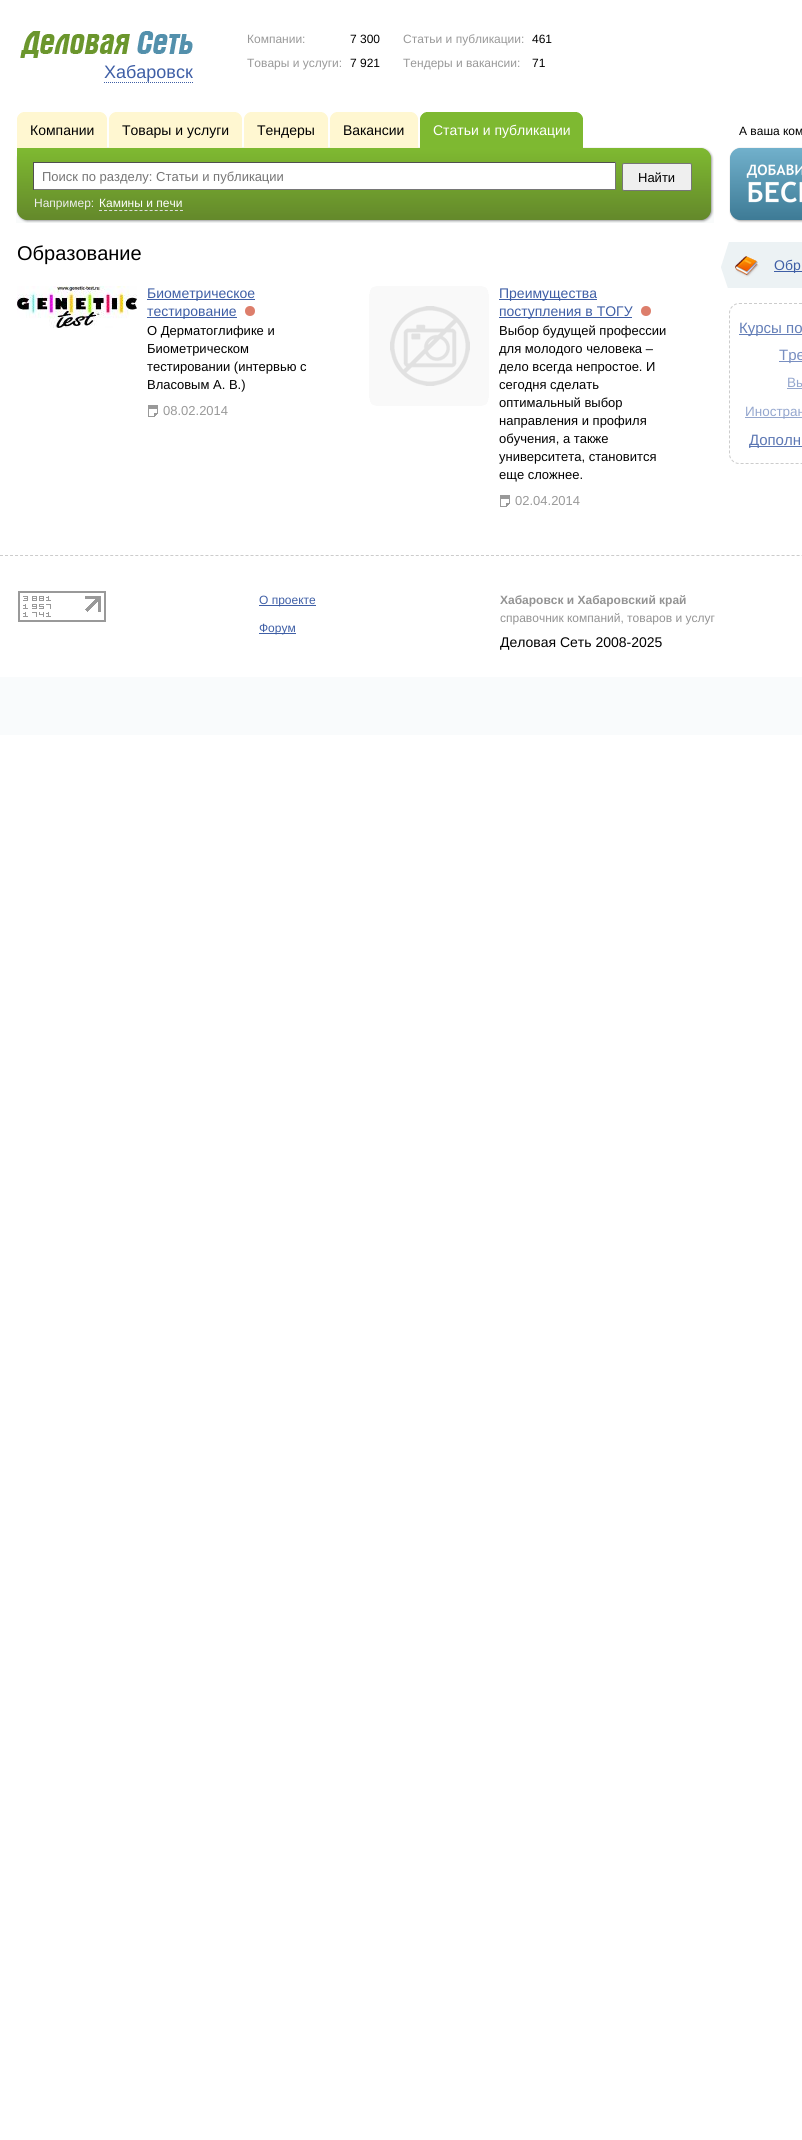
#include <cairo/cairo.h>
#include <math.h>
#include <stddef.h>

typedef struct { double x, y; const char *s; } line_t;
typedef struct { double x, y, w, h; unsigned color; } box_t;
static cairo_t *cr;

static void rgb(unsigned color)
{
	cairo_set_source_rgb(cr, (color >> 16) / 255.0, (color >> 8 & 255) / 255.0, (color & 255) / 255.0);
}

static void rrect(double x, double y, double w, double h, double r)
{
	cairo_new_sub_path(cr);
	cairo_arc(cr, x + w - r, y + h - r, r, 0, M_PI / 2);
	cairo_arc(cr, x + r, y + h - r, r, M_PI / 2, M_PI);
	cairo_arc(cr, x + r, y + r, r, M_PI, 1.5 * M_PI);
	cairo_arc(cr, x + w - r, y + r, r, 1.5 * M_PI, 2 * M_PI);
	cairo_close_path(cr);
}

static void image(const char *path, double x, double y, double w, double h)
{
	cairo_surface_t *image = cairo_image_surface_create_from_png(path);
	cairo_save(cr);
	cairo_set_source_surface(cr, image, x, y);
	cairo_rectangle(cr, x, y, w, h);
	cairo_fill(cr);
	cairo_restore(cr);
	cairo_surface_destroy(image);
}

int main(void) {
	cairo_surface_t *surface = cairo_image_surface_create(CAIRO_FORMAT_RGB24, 802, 2140);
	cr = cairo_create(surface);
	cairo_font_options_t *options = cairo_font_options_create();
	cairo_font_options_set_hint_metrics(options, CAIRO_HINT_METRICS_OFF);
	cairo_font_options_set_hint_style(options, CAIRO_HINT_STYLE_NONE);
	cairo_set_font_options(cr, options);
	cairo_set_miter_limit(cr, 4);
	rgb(0xffffff);
	cairo_paint(cr);
	cairo_new_path(cr);
	cairo_move_to(cr, 104, 82.5);
	cairo_line_to(cr, 193, 82.5);
	rgb(0x3f5fa6);
	cairo_set_line_width(cr, 1);
	cairo_set_dash(cr, (double[]){1, 1}, 2, 0);
	cairo_stroke(cr);
	image("img/6.png", 17, 147, 685, 76);
	rgb(0xfff7d1);
	cairo_rectangle(cr, 17, 112, 90, 36);
	cairo_fill(cr);
	image("img/2.png", 101, 112, 6, 6);
	image("img/3.png", 17, 112, 6, 6);
	cairo_rectangle(cr, 109, 112, 133, 36);
	cairo_fill(cr);
	image("img/2.png", 236, 112, 6, 6);
	image("img/3.png", 109, 112, 6, 6);
	cairo_rectangle(cr, 244, 112, 84, 36);
	cairo_fill(cr);
	image("img/2.png", 322, 112, 6, 6);
	image("img/3.png", 244, 112, 6, 6);
	cairo_rectangle(cr, 330, 112, 88, 36);
	cairo_fill(cr);
	image("img/2.png", 412, 112, 6, 6);
	image("img/3.png", 330, 112, 6, 6);
	rgb(0x7eb931);
	cairo_rectangle(cr, 420, 112, 163, 36);
	cairo_fill(cr);
	image("img/4.png", 577, 112, 6, 6);
	image("img/5.png", 420, 112, 6, 6);
	image("img/7.png", 16, 156, 11, 67);
	{
		static const box_t items[] = {
			{34, 163, 581, 26, 0xffffff},
			{33, 162, 583, 1, 0x4f4f4f},
			{615, 162, 1, 28, 0x767676},
			{33, 189, 583, 1, 0x767676},
			{33, 162, 1, 28, 0x4f4f4f},
		};
		for (size_t i = 0; i < sizeof items / sizeof *items; i++) {
			rgb(items[i].color);
			cairo_rectangle(cr, items[i].x, items[i].y, items[i].w, items[i].h);
			cairo_fill(cr);
		}
	}
	rgb(0xefefef);
	rrect(622.5, 163.5, 69, 27, 1.5);
	cairo_fill_preserve(cr);
	rgb(0x767676);
	cairo_set_dash(cr, NULL, 0, 0);
	cairo_stroke(cr);
	image("img/8.png", 702, 147, 12, 76);
	cairo_new_path(cr);
	cairo_move_to(cr, 99, 210.5);
	cairo_line_to(cr, 183, 210.5);
	rgb(0xdddddd);
	cairo_set_dash(cr, (double[]){3, 2.06}, 2, 0);
	cairo_stroke(cr);
	image("img/9.png", 729, 147, 73, 76);
	image("img/10.png", 17, 286, 120, 42);
	rgb(0x3f5fa6);
	cairo_rectangle(cr, 147, 299, 108, 1);
	cairo_fill(cr);
	cairo_rectangle(cr, 147, 317, 90, 1);
	cairo_fill(cr);
	rgb(0xdd7e6b);
	cairo_arc(cr, 250, 311, 5, 0, 2 * M_PI);
	cairo_fill(cr);
	image("img/11.png", 148, 405, 10, 12);
	image("img/12.png", 369, 286, 120, 120);
	rgb(0x3f5fa6);
	cairo_rectangle(cr, 499, 299, 98, 1);
	cairo_fill(cr);
	cairo_rectangle(cr, 499, 317, 133, 1);
	cairo_fill(cr);
	rgb(0xdd7e6b);
	cairo_arc(cr, 646, 311, 5, 0, 2 * M_PI);
	cairo_fill(cr);
	image("img/11.png", 500, 495, 10, 12);
	rgb(0xecf2f4);
	cairo_rectangle(cr, 729, 242, 73, 46);
	cairo_fill(cr);
	image("img/13.png", 721, 242, 8, 46);
	image("img/14.png", 735, 256, 24, 21);
	rgb(0x3f5fa6);
	cairo_rectangle(cr, 774, 271, 28, 1);
	cairo_fill(cr);
	cairo_new_path(cr);
	cairo_move_to(cr, 739, 303.5);
	cairo_line_to(cr, 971, 303.5);
	cairo_curve_to(cr, 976, 303.5, 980.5, 308, 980.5, 313);
	cairo_line_to(cr, 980.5, 454);
	cairo_curve_to(cr, 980.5, 459, 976, 463.5, 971, 463.5);
	cairo_line_to(cr, 739, 463.5);
	cairo_curve_to(cr, 734, 463.5, 729.5, 459, 729.5, 454);
	cairo_line_to(cr, 729.5, 313);
	cairo_curve_to(cr, 729.5, 308, 734, 303.5, 739, 303.5);
	cairo_close_path(cr);
	rgb(0xcccccc);
	cairo_set_dash(cr, (double[]){3, 2}, 2, 0);
	cairo_stroke(cr);
	{
		static const box_t items[] = {
			{739, 334, 63, 1, 0x657fb8},
			{779, 361, 23, 1, 0x798fc1},
			{787, 388, 15, 1, 0x95a7ce},
			{745, 417, 57, 1, 0x95a7ce},
			{749, 446, 53, 1, 0x5c77b3},
			{0, 677, 802, 58, 0xf9fbfc},
		};
		for (size_t i = 0; i < sizeof items / sizeof *items; i++) {
			rgb(items[i].color);
			cairo_rectangle(cr, items[i].x, items[i].y, items[i].w, items[i].h);
			cairo_fill(cr);
		}
	}
	cairo_new_path(cr);
	cairo_move_to(cr, 0, 555.5);
	cairo_line_to(cr, 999, 555.5);
	rgb(0xcccccc);
	cairo_set_dash(cr, (double[]){3, 2.01}, 2, 0);
	cairo_stroke(cr);
	image("img/15.png", 18, 591, 88, 31);
	rgb(0x3f5fa6);
	cairo_rectangle(cr, 259, 605, 57, 1);
	cairo_fill(cr);
	cairo_rectangle(cr, 259, 633, 37, 1);
	cairo_fill(cr);
	cairo_select_font_face(cr, "Liberation Sans", CAIRO_FONT_SLANT_NORMAL, CAIRO_FONT_WEIGHT_NORMAL);
	cairo_set_font_size(cr, 12);
	rgb(0x999999);
	cairo_move_to(cr, 247, 43);
	cairo_show_text(cr, "Компании:");
	rgb(0x000000);
	cairo_move_to(cr, 350, 43);
	cairo_show_text(cr, "7 300");
	rgb(0x999999);
	cairo_move_to(cr, 247, 67);
	cairo_show_text(cr, "Товары и услуги:");
	rgb(0x000000);
	cairo_move_to(cr, 350, 67);
	cairo_show_text(cr, "7 921");
	rgb(0x999999);
	cairo_move_to(cr, 403, 43);
	cairo_show_text(cr, "Статьи и публикации:");
	rgb(0x000000);
	cairo_move_to(cr, 532, 43);
	cairo_show_text(cr, "461");
	rgb(0x999999);
	cairo_move_to(cr, 403, 67);
	cairo_show_text(cr, "Тендеры и вакансии:");
	rgb(0x000000);
	cairo_move_to(cr, 532, 67);
	cairo_show_text(cr, "71");
	cairo_set_font_size(cr, 18);
	rgb(0x3f5fa6);
	cairo_move_to(cr, 104, 78);
	cairo_show_text(cr, "Хабаровск");
	image("img/1.png", 20, 31, 173, 34);
	cairo_set_font_size(cr, 14);
	rgb(0x000000);
	{
		static const line_t items[] = {
			{30, 135, "Компании"},
			{122, 135, "Товары и услуги"},
			{257, 135, "Тендеры"},
			{343, 135, "Вакансии"},
		};
		for (size_t i = 0; i < sizeof items / sizeof *items; i++) {
			cairo_move_to(cr, items[i].x, items[i].y);
			cairo_show_text(cr, items[i].s);
		}
	}
	rgb(0xffffff);
	cairo_move_to(cr, 433, 135);
	cairo_show_text(cr, "Статьи и публикации");
	cairo_set_font_size(cr, 13);
	rgb(0x757575);
	cairo_move_to(cr, 42, 181);
	cairo_show_text(cr, "Поиск по разделу: Статьи и публикации");
	rgb(0x000000);
	cairo_move_to(cr, 638, 182);
	cairo_show_text(cr, "Найти");
	cairo_set_font_size(cr, 12);
	rgb(0xeeeeee);
	cairo_move_to(cr, 34, 207);
	cairo_show_text(cr, "Например:");
	rgb(0xffffff);
	cairo_move_to(cr, 99, 207);
	cairo_show_text(cr, "Камины и печи");
	rgb(0x000000);
	cairo_move_to(cr, 739, 135);
	cairo_show_text(cr, "А ваша ком");
	cairo_set_font_size(cr, 20);
	cairo_move_to(cr, 17, 260);
	cairo_show_text(cr, "Образование");
	cairo_set_font_size(cr, 14);
	rgb(0x3f5fa6);
	cairo_move_to(cr, 147, 298);
	cairo_show_text(cr, "Биометрическое");
	cairo_move_to(cr, 147, 316);
	cairo_show_text(cr, "тестирование");
	cairo_set_font_size(cr, 13);
	rgb(0x000000);
	{
		static const line_t items[] = {
			{147, 335, "О Дерматоглифике и"},
			{147, 353, "Биометрическом"},
			{147, 371, "тестировании (интервью с"},
			{147, 389, "Власовым А. В.)"},
		};
		for (size_t i = 0; i < sizeof items / sizeof *items; i++) {
			cairo_move_to(cr, items[i].x, items[i].y);
			cairo_show_text(cr, items[i].s);
		}
	}
	rgb(0x999999);
	cairo_move_to(cr, 163, 415);
	cairo_show_text(cr, "08.02.2014");
	cairo_set_font_size(cr, 14);
	rgb(0x3f5fa6);
	cairo_move_to(cr, 499, 298);
	cairo_show_text(cr, "Преимущества");
	cairo_move_to(cr, 499, 316);
	cairo_show_text(cr, "поступления в ТОГУ");
	cairo_set_font_size(cr, 13);
	rgb(0x000000);
	{
		static const line_t items[] = {
			{499, 335, "Выбор будущей профессии"},
			{499, 353, "для молодого человека –"},
			{499, 371, "дело всегда непростое. И"},
			{499, 389, "сегодня сделать"},
			{499, 407, "оптимальный выбор"},
			{499, 425, "направления и профиля"},
			{499, 443, "обучения, а также"},
			{499, 461, "университета, становится"},
			{499, 479, "еще сложнее."},
		};
		for (size_t i = 0; i < sizeof items / sizeof *items; i++) {
			cairo_move_to(cr, items[i].x, items[i].y);
			cairo_show_text(cr, items[i].s);
		}
	}
	rgb(0x999999);
	cairo_move_to(cr, 515, 505);
	cairo_show_text(cr, "02.04.2014");
	cairo_set_font_size(cr, 14);
	rgb(0x3f5fa6);
	cairo_move_to(cr, 774, 270);
	cairo_show_text(cr, "Обр");
	cairo_set_font_size(cr, 15);
	rgb(0x657fb8);
	cairo_move_to(cr, 739, 333);
	cairo_show_text(cr, "Курсы по");
	rgb(0x798fc1);
	cairo_move_to(cr, 779, 360);
	cairo_show_text(cr, "Тре");
	cairo_set_font_size(cr, 13.5);
	rgb(0x95a7ce);
	cairo_move_to(cr, 787, 387);
	cairo_show_text(cr, "Вы");
	cairo_move_to(cr, 745, 416);
	cairo_show_text(cr, "Иностран");
	cairo_set_font_size(cr, 15);
	rgb(0x5c77b3);
	cairo_move_to(cr, 749, 445);
	cairo_show_text(cr, "Дополн");
	cairo_set_font_size(cr, 12);
	rgb(0x3f5fa6);
	cairo_move_to(cr, 259, 604);
	cairo_show_text(cr, "О проекте");
	cairo_move_to(cr, 259, 632);
	cairo_show_text(cr, "Форум");
	cairo_select_font_face(cr, "Liberation Sans", CAIRO_FONT_SLANT_NORMAL, CAIRO_FONT_WEIGHT_BOLD);
	rgb(0x939393);
	cairo_move_to(cr, 500, 604);
	cairo_show_text(cr, "Хабаровск и Хабаровский край");
	cairo_select_font_face(cr, "Liberation Sans", CAIRO_FONT_SLANT_NORMAL, CAIRO_FONT_WEIGHT_NORMAL);
	cairo_move_to(cr, 500, 622);
	cairo_show_text(cr, "справочник компаний, товаров и услуг");
	cairo_set_font_size(cr, 14);
	rgb(0x000000);
	cairo_move_to(cr, 500, 647);
	cairo_show_text(cr, "Деловая Сеть 2008-2025");
	cairo_surface_write_to_png(surface, "page.png");
	cairo_font_options_destroy(options);
	cairo_destroy(cr);
	cairo_surface_destroy(surface);
	return 0;
}
